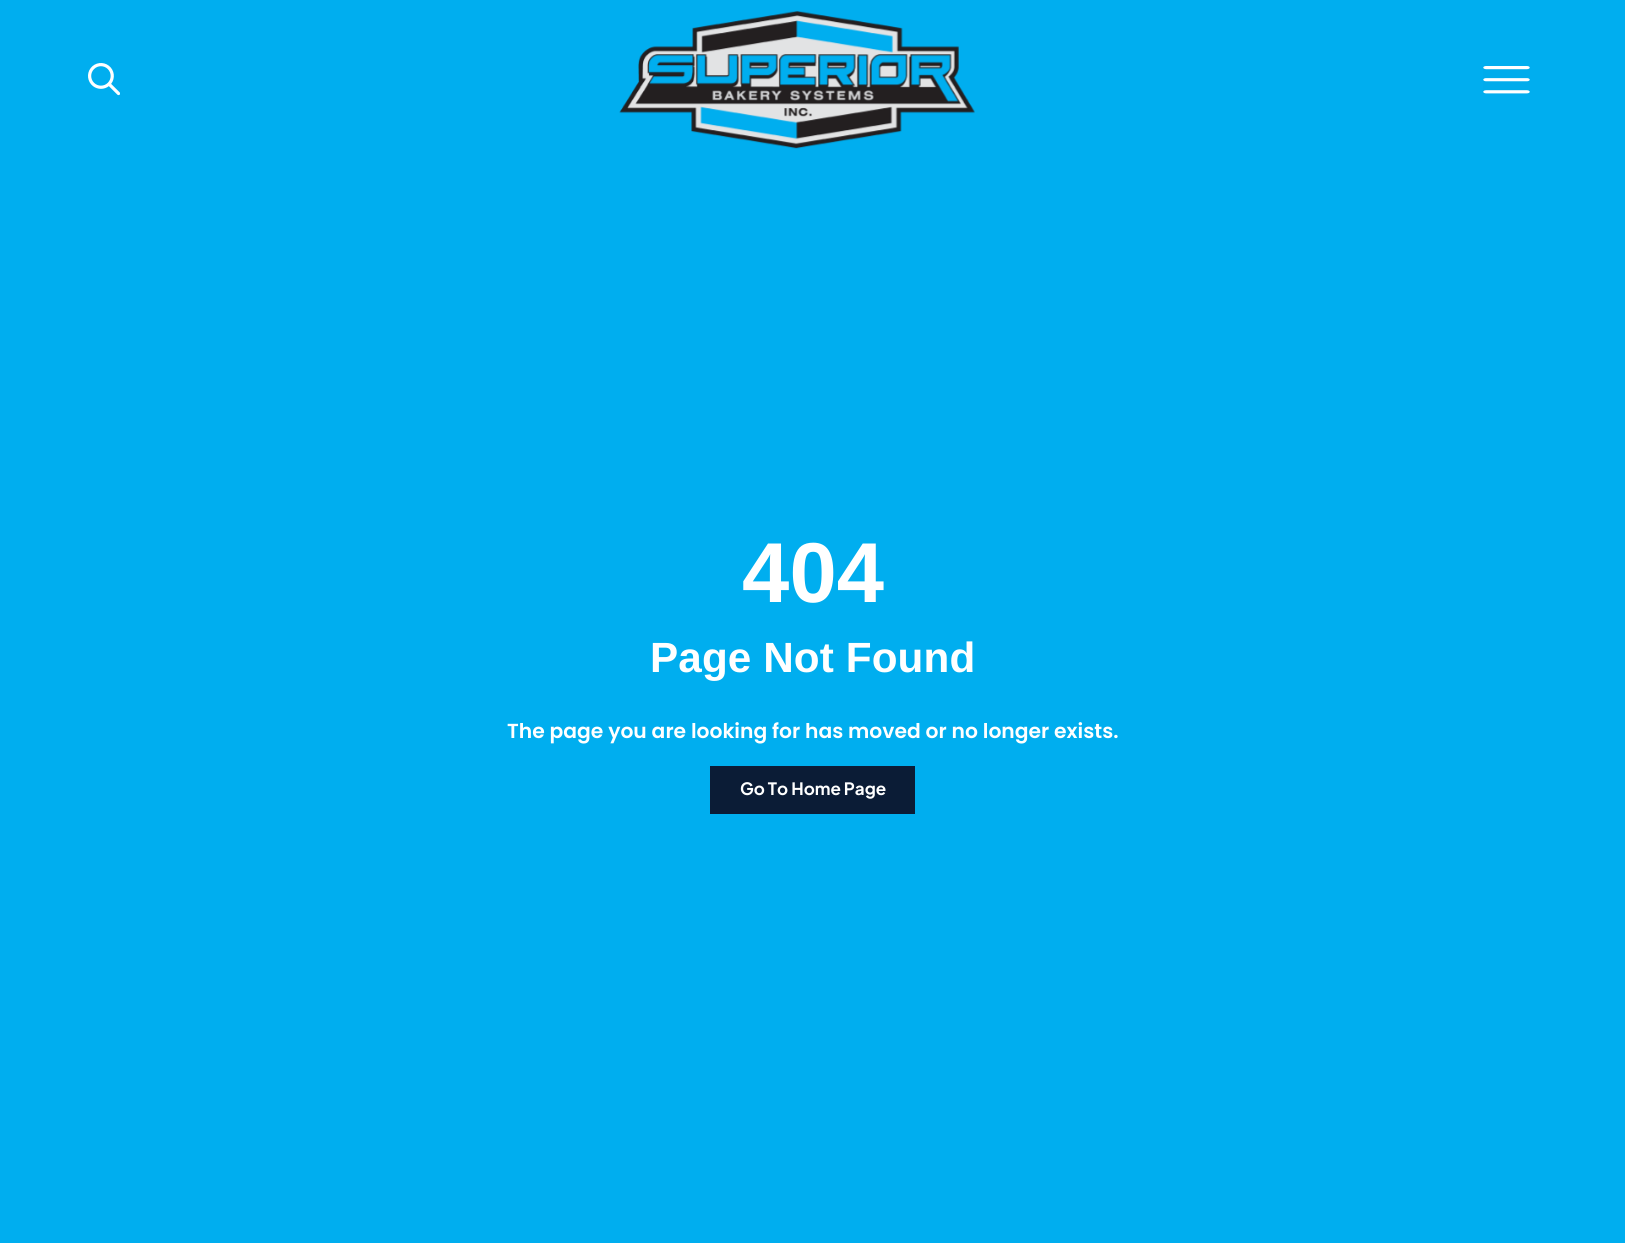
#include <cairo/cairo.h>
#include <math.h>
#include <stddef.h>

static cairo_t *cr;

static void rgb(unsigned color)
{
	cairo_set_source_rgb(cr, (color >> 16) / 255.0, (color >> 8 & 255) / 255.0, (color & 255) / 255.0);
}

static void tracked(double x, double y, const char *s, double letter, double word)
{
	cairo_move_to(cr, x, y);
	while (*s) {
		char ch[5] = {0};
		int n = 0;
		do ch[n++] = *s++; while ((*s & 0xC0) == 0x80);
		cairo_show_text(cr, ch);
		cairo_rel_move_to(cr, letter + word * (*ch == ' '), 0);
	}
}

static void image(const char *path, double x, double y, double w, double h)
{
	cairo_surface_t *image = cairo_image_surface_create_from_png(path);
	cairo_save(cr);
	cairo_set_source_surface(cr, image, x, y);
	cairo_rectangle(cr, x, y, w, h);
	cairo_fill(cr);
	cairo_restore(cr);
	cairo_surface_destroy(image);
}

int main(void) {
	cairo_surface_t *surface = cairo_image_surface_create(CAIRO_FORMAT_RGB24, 1625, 1243);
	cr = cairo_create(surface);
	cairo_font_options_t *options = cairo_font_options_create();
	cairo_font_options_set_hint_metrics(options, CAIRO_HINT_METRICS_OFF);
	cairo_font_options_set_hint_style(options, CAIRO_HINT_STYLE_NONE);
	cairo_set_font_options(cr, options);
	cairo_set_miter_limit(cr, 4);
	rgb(0x00aeef);
	cairo_paint(cr);
	image("img/1.png", 88, 63, 32, 33);
	image("img/2.png", 619, 11, 356, 138);
	image("img/3.png", 1483, 66, 47, 28);
	rgb(0x0b1c36);
	cairo_rectangle(cr, 710, 766, 205, 48);
	cairo_fill(cr);
	cairo_select_font_face(cr, "Liberation Sans", CAIRO_FONT_SLANT_NORMAL, CAIRO_FONT_WEIGHT_BOLD);
	cairo_set_font_size(cr, 85);
	rgb(0xffffff);
	tracked(742, 602, "404", 0.1, 0);
	cairo_set_font_size(cr, 42.25);
	tracked(650, 672, "Page Not Found", 0.1, 0);
	cairo_select_font_face(cr, "Poppins SemiBold", CAIRO_FONT_SLANT_NORMAL, CAIRO_FONT_WEIGHT_NORMAL);
	cairo_set_font_size(cr, 20.3);
	cairo_move_to(cr, 507, 738);
	cairo_show_text(cr, "The page you are looking for has moved or no longer exists.");
	cairo_select_font_face(cr, "Plus Jakarta Sans", CAIRO_FONT_SLANT_NORMAL, CAIRO_FONT_WEIGHT_BOLD);
	cairo_set_font_size(cr, 17);
	cairo_move_to(cr, 740, 795);
	cairo_show_text(cr, "Go To Home Page");
	cairo_surface_write_to_png(surface, "page.png");
	cairo_font_options_destroy(options);
	cairo_destroy(cr);
	cairo_surface_destroy(surface);
	return 0;
}
